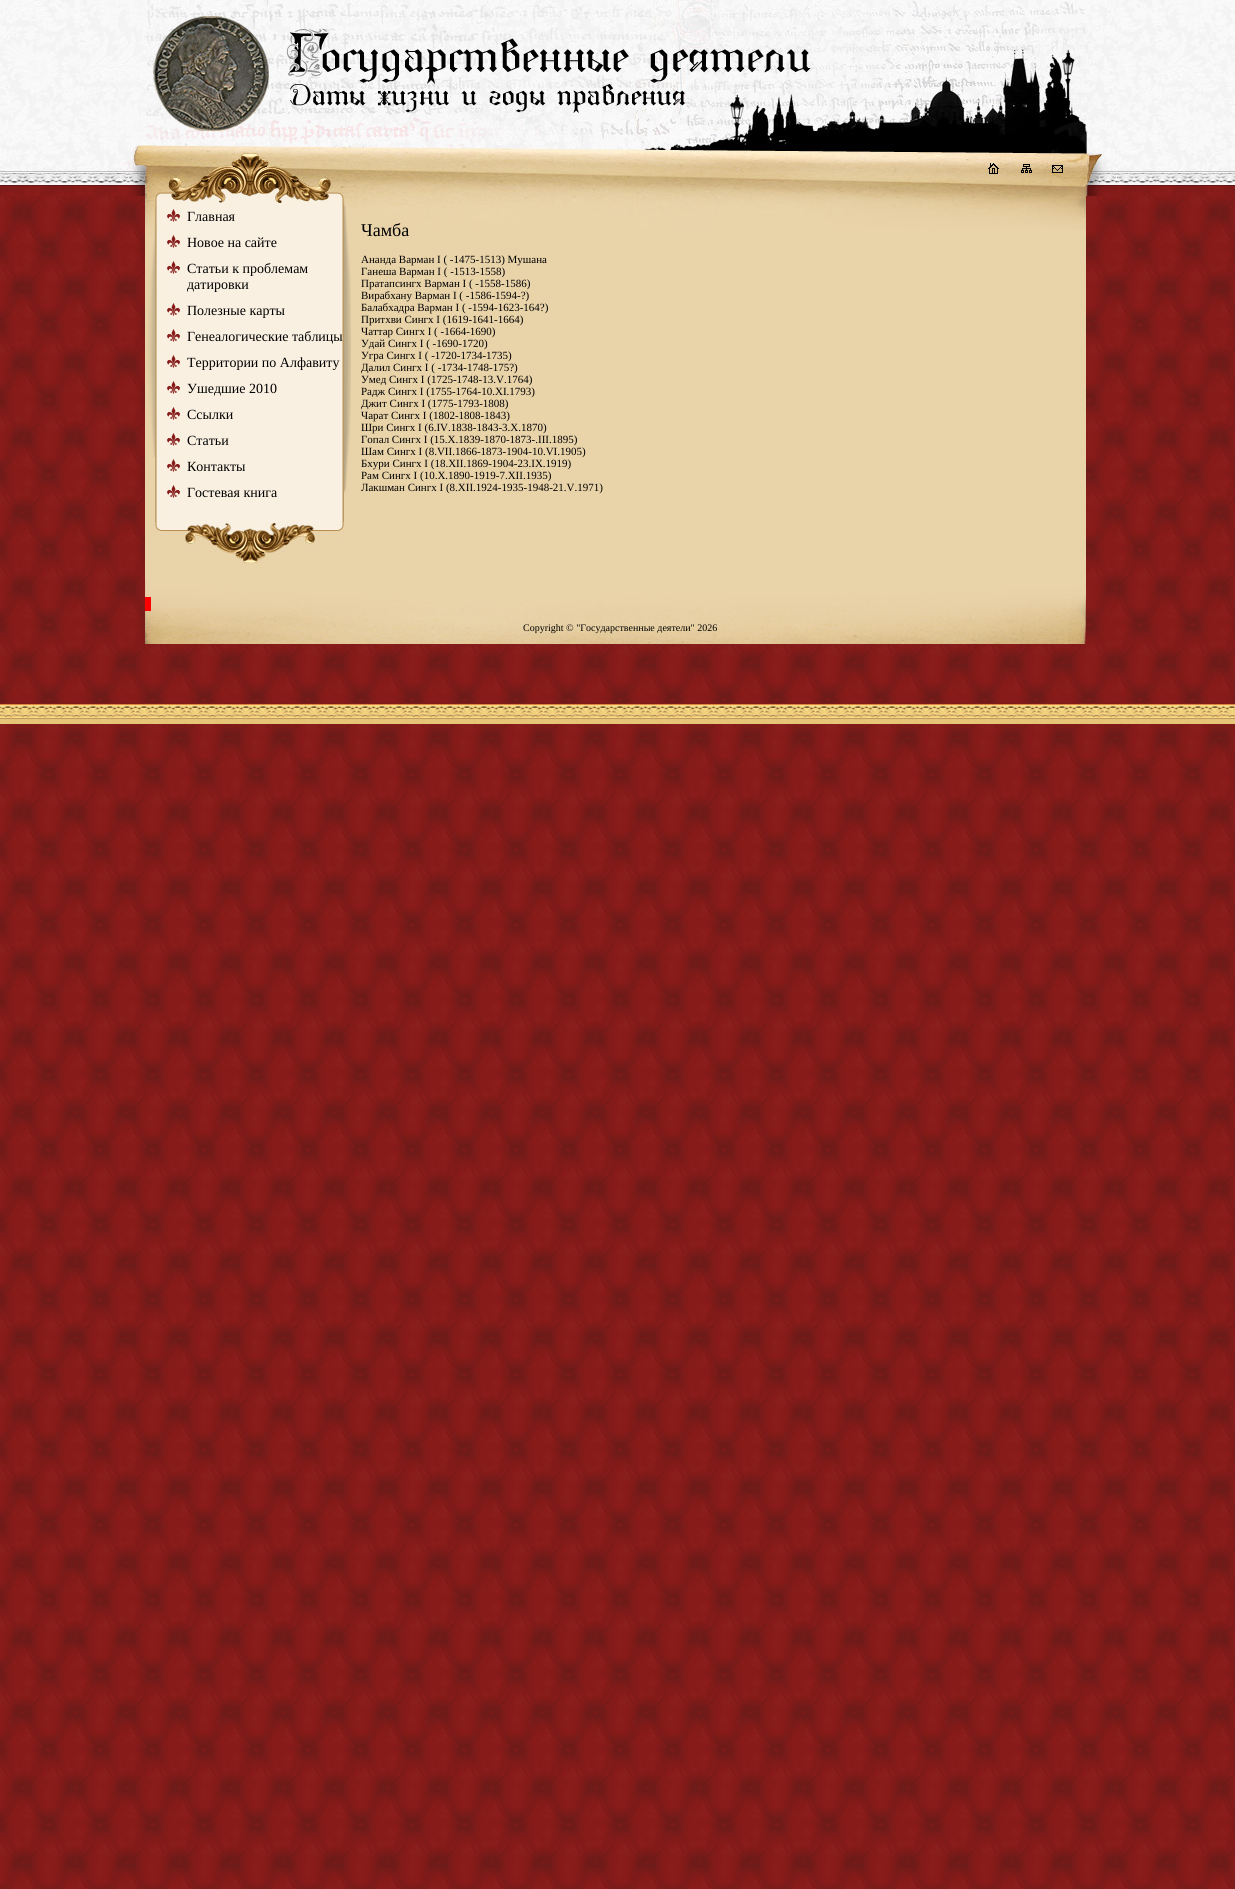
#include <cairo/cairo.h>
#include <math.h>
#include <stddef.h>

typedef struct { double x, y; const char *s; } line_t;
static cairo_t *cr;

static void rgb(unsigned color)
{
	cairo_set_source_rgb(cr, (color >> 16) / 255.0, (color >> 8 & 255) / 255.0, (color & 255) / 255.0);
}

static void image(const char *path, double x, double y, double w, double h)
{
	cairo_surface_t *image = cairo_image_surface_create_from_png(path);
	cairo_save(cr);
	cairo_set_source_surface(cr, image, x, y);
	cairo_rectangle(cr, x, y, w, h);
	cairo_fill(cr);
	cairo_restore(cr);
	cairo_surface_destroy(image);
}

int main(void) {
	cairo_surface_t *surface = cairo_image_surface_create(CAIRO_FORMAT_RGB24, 1235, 1889);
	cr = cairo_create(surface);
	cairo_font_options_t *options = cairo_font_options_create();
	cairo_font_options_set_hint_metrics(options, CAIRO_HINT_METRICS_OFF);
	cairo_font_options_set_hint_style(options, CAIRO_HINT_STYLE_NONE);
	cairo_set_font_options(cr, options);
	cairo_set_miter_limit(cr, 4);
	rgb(0xffffff);
	cairo_paint(cr);
	image("img/1.png", 0, 196, 1235, 1693);
	image("img/2.png", 0, 0, 1235, 196);
	image("img/3.png", 118, 0, 1000, 196);
	rgb(0xe9d3a9);
	cairo_rectangle(cr, 145, 230, 941, 350);
	cairo_fill(cr);
	image("img/4.png", 351, 196, 735, 34);
	image("img/5.png", 145, 580, 941, 64);
	image("img/6.png", 145, 196, 206, 10);
	image("img/7.png", 145, 206, 10, 251);
	image("img/8.png", 155, 206, 189, 316);
	image("img/9.png", 167, 209, 13, 13);
	image("img/9.png", 167, 235, 13, 13);
	image("img/9.png", 167, 261, 13, 13);
	image("img/9.png", 167, 303, 13, 13);
	image("img/9.png", 167, 329, 13, 13);
	image("img/9.png", 167, 355, 13, 13);
	image("img/9.png", 167, 381, 13, 13);
	image("img/9.png", 167, 407, 13, 13);
	image("img/9.png", 167, 433, 13, 13);
	image("img/9.png", 167, 459, 13, 13);
	image("img/9.png", 167, 485, 13, 13);
	image("img/10.png", 344, 206, 7, 287);
	image("img/11.png", 153, 522, 192, 42);
	rgb(0xff0000);
	cairo_rectangle(cr, 145, 597, 6, 14);
	cairo_fill(cr);
	image("img/12.png", 0, 703, 1235, 21);
	cairo_select_font_face(cr, "Liberation Serif", CAIRO_FONT_SLANT_NORMAL, CAIRO_FONT_WEIGHT_NORMAL);
	cairo_set_font_size(cr, 14);
	rgb(0x000000);
	{
		static const line_t items[] = {
			{187, 221, "Главная"},
			{187, 247, "Новое на сайте"},
			{187, 273, "Статьи к проблемам"},
			{187, 289, "датировки"},
			{187, 315, "Полезные карты"},
			{187, 341, "Генеалогические таблицы"},
			{187, 367, "Территории по Алфавиту"},
			{187, 393, "Ушедшие 2010"},
			{187, 419, "Ссылки"},
			{187, 445, "Статьи"},
			{187, 471, "Контакты"},
			{187, 497, "Гостевая книга"},
		};
		for (size_t i = 0; i < sizeof items / sizeof *items; i++) {
			cairo_move_to(cr, items[i].x, items[i].y);
			cairo_show_text(cr, items[i].s);
		}
	}
	cairo_set_font_size(cr, 18);
	cairo_move_to(cr, 361, 236);
	cairo_show_text(cr, "Чамба");
	cairo_set_font_size(cr, 11);
	{
		static const line_t items[] = {
			{361, 263, "Ананда Варман I ( -1475-1513) Мушана"},
			{361, 275, "Ганеша Варман I ( -1513-1558)"},
			{361, 287, "Пратапcингх Варман I ( -1558-1586)"},
			{361, 299, "Вирабхану Варман I ( -1586-1594-?)"},
			{361, 311, "Балабхадра Варман I ( -1594-1623-164?)"},
			{361, 323, "Притхви Сингх I (1619-1641-1664)"},
			{361, 335, "Чаттар Сингх I ( -1664-1690)"},
			{361, 347, "Удай Сингх I ( -1690-1720)"},
			{361, 359, "Угра Сингх I ( -1720-1734-1735)"},
			{361, 371, "Далил Сингх I ( -1734-1748-175?)"},
			{361, 383, "Умед Сингх I (1725-1748-13.V.1764)"},
			{361, 395, "Радж Сингх I (1755-1764-10.XI.1793)"},
			{361, 407, "Джит Сингх I (1775-1793-1808)"},
			{361, 419, "Чарат Сингх I (1802-1808-1843)"},
			{361, 431, "Шри Сингх I (6.IV.1838-1843-3.X.1870)"},
			{361, 443, "Гопал Сингх I (15.X.1839-1870-1873-.III.1895)"},
			{361, 455, "Шам Сингх I (8.VII.1866-1873-1904-10.VI.1905)"},
			{361, 467, "Бхури Сингх I (18.XII.1869-1904-23.IX.1919)"},
			{361, 479, "Рам Сингх I (10.X.1890-1919-7.XII.1935)"},
			{361, 491, "Лакшман Сингх I (8.XII.1924-1935-1948-21.V.1971)"},
		};
		for (size_t i = 0; i < sizeof items / sizeof *items; i++) {
			cairo_move_to(cr, items[i].x, items[i].y);
			cairo_show_text(cr, items[i].s);
		}
	}
	cairo_set_font_size(cr, 10);
	cairo_move_to(cr, 523, 631);
	cairo_show_text(cr, "Copyright © \"Государственные деятели\" 2026");
	cairo_surface_write_to_png(surface, "page.png");
	cairo_font_options_destroy(options);
	cairo_destroy(cr);
	cairo_surface_destroy(surface);
	return 0;
}
